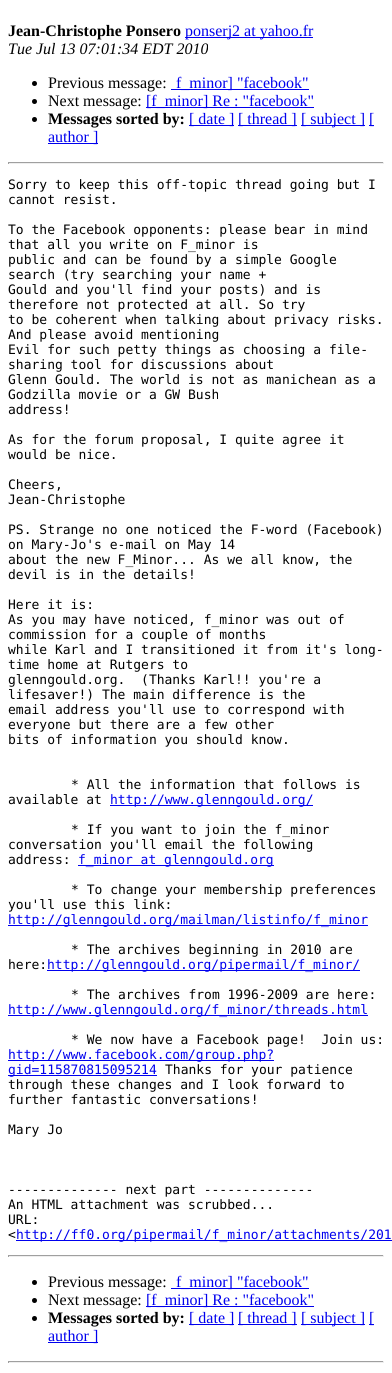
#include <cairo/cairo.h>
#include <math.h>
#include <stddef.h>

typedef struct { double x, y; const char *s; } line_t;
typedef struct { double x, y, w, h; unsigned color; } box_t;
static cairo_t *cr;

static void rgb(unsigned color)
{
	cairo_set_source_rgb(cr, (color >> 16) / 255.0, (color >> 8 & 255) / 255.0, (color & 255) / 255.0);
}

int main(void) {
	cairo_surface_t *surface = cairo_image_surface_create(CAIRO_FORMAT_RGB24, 392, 1373);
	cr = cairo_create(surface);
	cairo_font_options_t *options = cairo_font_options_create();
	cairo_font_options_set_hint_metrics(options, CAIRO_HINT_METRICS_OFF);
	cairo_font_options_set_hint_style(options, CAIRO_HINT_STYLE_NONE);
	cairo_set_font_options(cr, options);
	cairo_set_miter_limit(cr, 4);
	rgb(0xffffff);
	cairo_paint(cr);
	rgb(0x0000ee);
	cairo_rectangle(cr, 185, 37, 128, 1);
	cairo_fill(cr);
	rgb(0x000000);
	cairo_arc(cr, 34.5, 83.5, 2.5, 0, 2 * M_PI);
	cairo_fill(cr);
	rgb(0x0000ee);
	cairo_rectangle(cr, 171, 89, 138, 1);
	cairo_fill(cr);
	rgb(0x000000);
	cairo_arc(cr, 34.5, 101.5, 2.5, 0, 2 * M_PI);
	cairo_fill(cr);
	rgb(0x0000ee);
	cairo_rectangle(cr, 146, 107, 168, 1);
	cairo_fill(cr);
	rgb(0x000000);
	cairo_arc(cr, 34.5, 119.5, 2.5, 0, 2 * M_PI);
	cairo_fill(cr);
	{
		static const box_t items[] = {
			{189, 125, 45, 1, 0x0000ee},
			{238, 125, 59, 1, 0x0000ee},
			{301, 125, 64, 1, 0x0000ee},
			{369, 125, 5, 1, 0x0000ee},
			{48, 143, 50, 1, 0x0000ee},
			{8, 162, 376, 1, 0x9f9f9f},
			{383, 162, 1, 2, 0xeeeeee},
			{8, 163, 376, 1, 0xeeeeee},
			{8, 162, 1, 2, 0x9f9f9f},
			{110, 805, 203, 1, 0x0000ee},
			{78, 865, 196, 1, 0x0000ee},
			{8, 925, 360, 1, 0x0000ee},
			{47, 970, 313, 1, 0x0000ee},
			{8, 1015, 360, 1, 0x0000ee},
			{8, 1060, 266, 1, 0x0000ee},
			{8, 1075, 149, 1, 0x0000ee},
			{16, 1240, 376, 1, 0x0000ee},
			{8, 1255, 376, 1, 0x9f9f9f},
			{383, 1255, 1, 2, 0xeeeeee},
			{8, 1256, 376, 1, 0xeeeeee},
			{8, 1255, 1, 2, 0x9f9f9f},
		};
		for (size_t i = 0; i < sizeof items / sizeof *items; i++) {
			rgb(items[i].color);
			cairo_rectangle(cr, items[i].x, items[i].y, items[i].w, items[i].h);
			cairo_fill(cr);
		}
	}
	rgb(0x000000);
	cairo_arc(cr, 34.5, 1282.5, 2.5, 0, 2 * M_PI);
	cairo_fill(cr);
	rgb(0x0000ee);
	cairo_rectangle(cr, 171, 1288, 138, 1);
	cairo_fill(cr);
	rgb(0x000000);
	cairo_arc(cr, 34.5, 1300.5, 2.5, 0, 2 * M_PI);
	cairo_fill(cr);
	rgb(0x0000ee);
	cairo_rectangle(cr, 146, 1306, 168, 1);
	cairo_fill(cr);
	rgb(0x000000);
	cairo_arc(cr, 34.5, 1318.5, 2.5, 0, 2 * M_PI);
	cairo_fill(cr);
	{
		static const box_t items[] = {
			{189, 1324, 45, 1, 0x0000ee},
			{238, 1324, 59, 1, 0x0000ee},
			{301, 1324, 64, 1, 0x0000ee},
			{369, 1324, 5, 1, 0x0000ee},
			{48, 1342, 50, 1, 0x0000ee},
			{8, 1361, 376, 1, 0x9f9f9f},
			{383, 1361, 1, 2, 0xeeeeee},
			{8, 1362, 376, 1, 0xeeeeee},
			{8, 1361, 1, 2, 0x9f9f9f},
		};
		for (size_t i = 0; i < sizeof items / sizeof *items; i++) {
			rgb(items[i].color);
			cairo_rectangle(cr, items[i].x, items[i].y, items[i].w, items[i].h);
			cairo_fill(cr);
		}
	}
	cairo_select_font_face(cr, "Liberation Serif", CAIRO_FONT_SLANT_NORMAL, CAIRO_FONT_WEIGHT_BOLD);
	cairo_set_font_size(cr, 16);
	rgb(0x000000);
	cairo_move_to(cr, 8, 36);
	cairo_show_text(cr, "Jean-Christophe Ponsero");
	cairo_select_font_face(cr, "Liberation Serif", CAIRO_FONT_SLANT_NORMAL, CAIRO_FONT_WEIGHT_NORMAL);
	rgb(0x0000ee);
	cairo_move_to(cr, 185, 36);
	cairo_show_text(cr, "ponserj2 at yahoo.fr");
	cairo_select_font_face(cr, "Liberation Serif", CAIRO_FONT_SLANT_ITALIC, CAIRO_FONT_WEIGHT_NORMAL);
	rgb(0x000000);
	cairo_move_to(cr, 8, 54);
	cairo_show_text(cr, "Tue Jul 13 07:01:34 EDT 2010");
	cairo_select_font_face(cr, "Liberation Serif", CAIRO_FONT_SLANT_NORMAL, CAIRO_FONT_WEIGHT_NORMAL);
	cairo_move_to(cr, 48, 88);
	cairo_show_text(cr, "Previous message:");
	rgb(0x0000ee);
	cairo_move_to(cr, 176, 88);
	cairo_show_text(cr, "f_minor] \"facebook\"");
	rgb(0x000000);
	cairo_move_to(cr, 48, 106);
	cairo_show_text(cr, "Next message:");
	rgb(0x0000ee);
	cairo_move_to(cr, 146, 106);
	cairo_show_text(cr, "[f_minor] Re : \"facebook\"");
	cairo_select_font_face(cr, "Liberation Serif", CAIRO_FONT_SLANT_NORMAL, CAIRO_FONT_WEIGHT_BOLD);
	rgb(0x000000);
	cairo_move_to(cr, 48, 124);
	cairo_show_text(cr, "Messages sorted by:");
	cairo_select_font_face(cr, "Liberation Serif", CAIRO_FONT_SLANT_NORMAL, CAIRO_FONT_WEIGHT_NORMAL);
	rgb(0x0000ee);
	{
		static const line_t items[] = {
			{189, 124, "[ date ]"},
			{238, 124, "[ thread ]"},
			{301, 124, "[ subject ]"},
			{369, 124, "["},
			{48, 142, "author ]"},
		};
		for (size_t i = 0; i < sizeof items / sizeof *items; i++) {
			cairo_move_to(cr, items[i].x, items[i].y);
			cairo_show_text(cr, items[i].s);
		}
	}
	cairo_select_font_face(cr, "DejaVu Sans Mono", CAIRO_FONT_SLANT_NORMAL, CAIRO_FONT_WEIGHT_NORMAL);
	cairo_set_font_size(cr, 13);
	rgb(0x000000);
	{
		static const line_t items[] = {
			{8, 189, "Sorry to keep this off-topic thread going but I"},
			{8, 204, "cannot resist."},
			{8, 234, "To the Facebook opponents: please bear in mind"},
			{8, 249, "that all you write on F_minor is"},
			{8, 264, "public and can be found by a simple Google"},
			{8, 279, "search (try searching your name +"},
			{8, 294, "Gould and you'll find your posts) and is"},
			{8, 309, "therefore not protected at all. So try"},
			{8, 324, "to be coherent when talking about privacy risks."},
			{8, 339, "And please avoid mentioning"},
			{8, 354, "Evil for such petty things as choosing a file-"},
			{8, 369, "sharing tool for discussions about"},
			{8, 384, "Glenn Gould. The world is not as manichean as a"},
			{8, 399, "Godzilla movie or a GW Bush"},
			{8, 414, "address!"},
			{8, 444, "As for the forum proposal, I quite agree it"},
			{8, 459, "would be nice."},
			{8, 489, "Cheers,"},
			{8, 504, "Jean-Christophe"},
			{8, 534, "PS. Strange no one noticed the F-word (Facebook)"},
			{8, 549, "on Mary-Jo's e-mail on May 14"},
			{8, 564, "about the new F_Minor... As we all know, the"},
			{8, 579, "devil is in the details!"},
			{8, 609, "Here it is:"},
			{8, 624, "As you may have noticed, f_minor was out of"},
			{8, 639, "commission for a couple of months"},
			{8, 654, "while Karl and I transitioned it from it's long-"},
			{8, 669, "time home at Rutgers to"},
			{8, 684, "glenngould.org.  (Thanks Karl!! you're a"},
			{8, 699, "lifesaver!) The main difference is the"},
			{8, 714, "email address you'll use to correspond with"},
			{8, 729, "everyone but there are a few other"},
			{8, 744, "bits of information you should know."},
			{71, 789, "* All the information that follows is"},
			{8, 804, "available at"},
		};
		for (size_t i = 0; i < sizeof items / sizeof *items; i++) {
			cairo_move_to(cr, items[i].x, items[i].y);
			cairo_show_text(cr, items[i].s);
		}
	}
	rgb(0x0000ee);
	cairo_move_to(cr, 110, 804);
	cairo_show_text(cr, "http://www.glenngould.org/");
	rgb(0x000000);
	{
		static const line_t items[] = {
			{71, 834, "* If you want to join the f_minor"},
			{8, 849, "conversation you'll email the following"},
			{8, 864, "address:"},
		};
		for (size_t i = 0; i < sizeof items / sizeof *items; i++) {
			cairo_move_to(cr, items[i].x, items[i].y);
			cairo_show_text(cr, items[i].s);
		}
	}
	rgb(0x0000ee);
	cairo_move_to(cr, 78, 864);
	cairo_show_text(cr, "f_minor at glenngould.org");
	rgb(0x000000);
	cairo_move_to(cr, 71, 894);
	cairo_show_text(cr, "* To change your membership preferences");
	cairo_move_to(cr, 8, 909);
	cairo_show_text(cr, "you'll use this link:");
	rgb(0x0000ee);
	cairo_move_to(cr, 8, 924);
	cairo_show_text(cr, "http://glenngould.org/mailman/listinfo/f_minor");
	rgb(0x000000);
	cairo_move_to(cr, 71, 954);
	cairo_show_text(cr, "* The archives beginning in 2010 are");
	cairo_move_to(cr, 8, 969);
	cairo_show_text(cr, "here:");
	rgb(0x0000ee);
	cairo_move_to(cr, 47, 969);
	cairo_show_text(cr, "http://glenngould.org/pipermail/f_minor/");
	rgb(0x000000);
	cairo_move_to(cr, 71, 999);
	cairo_show_text(cr, "* The archives from 1996-2009 are here:");
	rgb(0x0000ee);
	cairo_move_to(cr, 8, 1014);
	cairo_show_text(cr, "http://www.glenngould.org/f_minor/threads.html");
	rgb(0x000000);
	cairo_move_to(cr, 71, 1044);
	cairo_show_text(cr, "* We now have a Facebook page!  Join us:");
	rgb(0x0000ee);
	cairo_move_to(cr, 8, 1059);
	cairo_show_text(cr, "http://www.facebook.com/group.php?");
	cairo_move_to(cr, 8, 1074);
	cairo_show_text(cr, "gid=115870815095214");
	rgb(0x000000);
	{
		static const line_t items[] = {
			{165, 1074, "Thanks for your patience"},
			{8, 1089, "through these changes and I look forward to"},
			{8, 1104, "further fantastic conversations!"},
			{8, 1134, "Mary Jo"},
			{8, 1194, "-------------- next part --------------"},
			{8, 1209, "An HTML attachment was scrubbed..."},
			{8, 1224, "URL:"},
			{8, 1239, "<"},
		};
		for (size_t i = 0; i < sizeof items / sizeof *items; i++) {
			cairo_move_to(cr, items[i].x, items[i].y);
			cairo_show_text(cr, items[i].s);
		}
	}
	rgb(0x0000ee);
	cairo_move_to(cr, 16, 1239);
	cairo_show_text(cr, "http://ff0.org/pipermail/f_minor/attachments/201");
	cairo_select_font_face(cr, "Liberation Serif", CAIRO_FONT_SLANT_NORMAL, CAIRO_FONT_WEIGHT_NORMAL);
	cairo_set_font_size(cr, 16);
	rgb(0x000000);
	cairo_move_to(cr, 48, 1287);
	cairo_show_text(cr, "Previous message:");
	rgb(0x0000ee);
	cairo_move_to(cr, 176, 1287);
	cairo_show_text(cr, "f_minor] \"facebook\"");
	rgb(0x000000);
	cairo_move_to(cr, 48, 1305);
	cairo_show_text(cr, "Next message:");
	rgb(0x0000ee);
	cairo_move_to(cr, 146, 1305);
	cairo_show_text(cr, "[f_minor] Re : \"facebook\"");
	cairo_select_font_face(cr, "Liberation Serif", CAIRO_FONT_SLANT_NORMAL, CAIRO_FONT_WEIGHT_BOLD);
	rgb(0x000000);
	cairo_move_to(cr, 48, 1323);
	cairo_show_text(cr, "Messages sorted by:");
	cairo_select_font_face(cr, "Liberation Serif", CAIRO_FONT_SLANT_NORMAL, CAIRO_FONT_WEIGHT_NORMAL);
	rgb(0x0000ee);
	{
		static const line_t items[] = {
			{189, 1323, "[ date ]"},
			{238, 1323, "[ thread ]"},
			{301, 1323, "[ subject ]"},
			{369, 1323, "["},
			{48, 1341, "author ]"},
		};
		for (size_t i = 0; i < sizeof items / sizeof *items; i++) {
			cairo_move_to(cr, items[i].x, items[i].y);
			cairo_show_text(cr, items[i].s);
		}
	}
	cairo_surface_write_to_png(surface, "page.png");
	cairo_font_options_destroy(options);
	cairo_destroy(cr);
	cairo_surface_destroy(surface);
	return 0;
}
